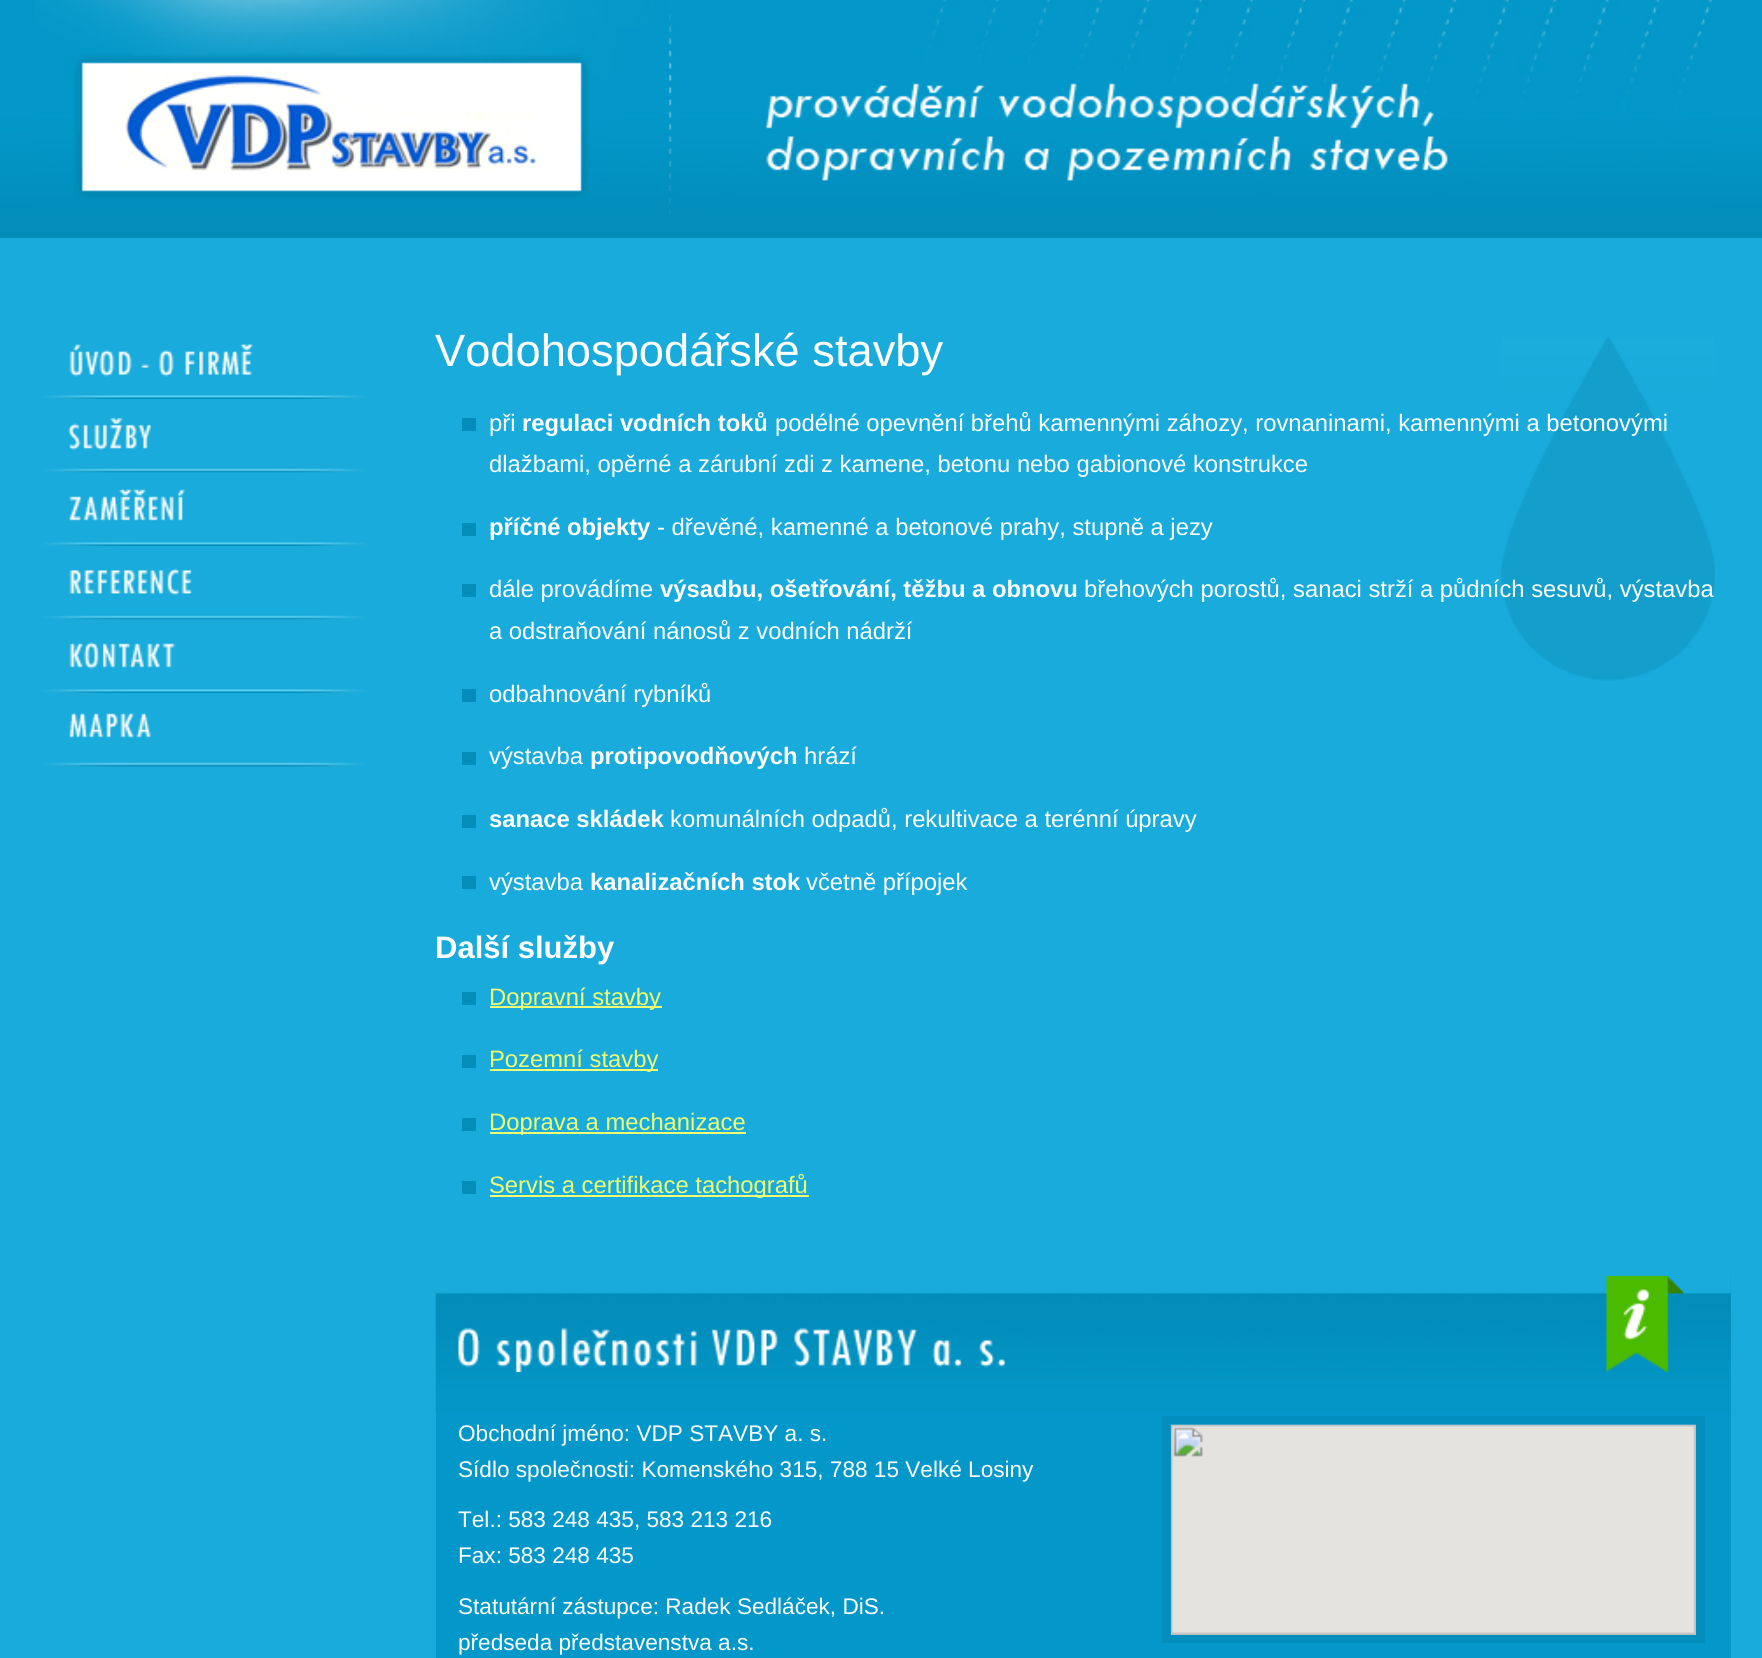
#include <cairo/cairo.h>
#include <math.h>
#include <stddef.h>

typedef struct { double x, y; const char *s; } line_t;
typedef struct { double x, y, w, h; unsigned color; } box_t;
static cairo_t *cr;

static void rgb(unsigned color)
{
	cairo_set_source_rgb(cr, (color >> 16) / 255.0, (color >> 8 & 255) / 255.0, (color & 255) / 255.0);
}

static void image(const char *path, double x, double y, double w, double h)
{
	cairo_surface_t *image = cairo_image_surface_create_from_png(path);
	cairo_save(cr);
	cairo_set_source_surface(cr, image, x, y);
	cairo_rectangle(cr, x, y, w, h);
	cairo_fill(cr);
	cairo_restore(cr);
	cairo_surface_destroy(image);
}

int main(void) {
	cairo_surface_t *surface = cairo_image_surface_create(CAIRO_FORMAT_RGB24, 1762, 1658);
	cr = cairo_create(surface);
	cairo_font_options_t *options = cairo_font_options_create();
	cairo_font_options_set_hint_metrics(options, CAIRO_HINT_METRICS_OFF);
	cairo_font_options_set_hint_style(options, CAIRO_HINT_STYLE_NONE);
	cairo_set_font_options(cr, options);
	cairo_set_miter_limit(cr, 4);
	rgb(0x18abdb);
	cairo_paint(cr);
	image("img/1.png", 0, 0, 1762, 238);
	image("img/2.png", 34, 0, 1678, 214);
	image("img/3.png", 73, 53, 517, 145);
	image("img/4.png", 65, 55, 376, 32);
	image("img/5.png", 756, 78, 692, 103);
	image("img/6.png", 33, 336, 333, 63);
	image("img/7.png", 33, 409, 332, 64);
	image("img/8.png", 33, 472, 333, 74);
	image("img/9.png", 33, 556, 332, 64);
	image("img/10.png", 33, 619, 333, 74);
	image("img/11.png", 33, 703, 332, 64);
	image("img/12.png", 1501, 337, 214, 344);
	{
		static const box_t items[] = {
			{462, 418, 14, 13, 0x028dba},
			{462, 523, 14, 13, 0x028dba},
			{462, 584, 14, 13, 0x028dba},
			{462, 689, 14, 13, 0x028dba},
			{462, 752, 14, 13, 0x028dba},
			{462, 815, 14, 13, 0x028dba},
			{462, 876, 14, 13, 0x028dba},
			{462, 992, 14, 13, 0x028dba},
			{490, 1006, 172, 2, 0xf0ff72},
			{462, 1055, 14, 13, 0x028dba},
			{490, 1069, 168, 2, 0xf0ff72},
			{462, 1118, 14, 13, 0x028dba},
			{490, 1132, 256, 2, 0xf0ff72},
			{462, 1181, 14, 13, 0x028dba},
			{490, 1195, 319, 2, 0xf0ff72},
			{436, 1276, 1295, 382, 0x0398c9},
		};
		for (size_t i = 0; i < sizeof items / sizeof *items; i++) {
			rgb(items[i].color);
			cairo_rectangle(cr, items[i].x, items[i].y, items[i].w, items[i].h);
			cairo_fill(cr);
		}
	}
	image("img/13.png", 435, 1276, 1296, 136);
	image("img/14.png", 436, 1275, 1248, 97);
	cairo_rectangle(cr, 1166.5, 1420.5, 534, 218);
	rgb(0x028fbe);
	cairo_set_line_width(cr, 9);
	cairo_stroke(cr);
	image("img/15.png", 1170, 1424, 526, 211);
	cairo_select_font_face(cr, "Liberation Sans", CAIRO_FONT_SLANT_NORMAL, CAIRO_FONT_WEIGHT_NORMAL);
	cairo_set_font_size(cr, 45.25);
	rgb(0xffffff);
	cairo_move_to(cr, 435, 366);
	cairo_show_text(cr, "Vodohospodářské stavby");
	cairo_set_font_size(cr, 23.8);
	cairo_move_to(cr, 489, 431);
	cairo_show_text(cr, "při");
	cairo_select_font_face(cr, "Liberation Sans", CAIRO_FONT_SLANT_NORMAL, CAIRO_FONT_WEIGHT_BOLD);
	cairo_move_to(cr, 522, 431);
	cairo_show_text(cr, "regulaci vodních toků");
	cairo_select_font_face(cr, "Liberation Sans", CAIRO_FONT_SLANT_NORMAL, CAIRO_FONT_WEIGHT_NORMAL);
	cairo_move_to(cr, 775, 431);
	cairo_show_text(cr, "podélné opevnění břehů kamennými záhozy, rovnaninami, kamennými a betonovými");
	cairo_move_to(cr, 489, 472);
	cairo_show_text(cr, "dlažbami, opěrné a zárubní zdi z kamene, betonu nebo gabionové konstrukce");
	cairo_select_font_face(cr, "Liberation Sans", CAIRO_FONT_SLANT_NORMAL, CAIRO_FONT_WEIGHT_BOLD);
	cairo_move_to(cr, 489, 535);
	cairo_show_text(cr, "příčné objekty");
	cairo_select_font_face(cr, "Liberation Sans", CAIRO_FONT_SLANT_NORMAL, CAIRO_FONT_WEIGHT_NORMAL);
	cairo_move_to(cr, 657, 535);
	cairo_show_text(cr, "- dřevěné, kamenné a betonové prahy, stupně a jezy");
	cairo_move_to(cr, 489, 597);
	cairo_show_text(cr, "dále provádíme");
	cairo_select_font_face(cr, "Liberation Sans", CAIRO_FONT_SLANT_NORMAL, CAIRO_FONT_WEIGHT_BOLD);
	cairo_move_to(cr, 660, 597);
	cairo_show_text(cr, "výsadbu, ošetřování, těžbu a obnovu");
	cairo_select_font_face(cr, "Liberation Sans", CAIRO_FONT_SLANT_NORMAL, CAIRO_FONT_WEIGHT_NORMAL);
	{
		static const line_t items[] = {
			{1084, 597, "břehových porostů, sanaci strží a půdních sesuvů, výstavba"},
			{489, 639, "a odstraňování nánosů z vodních nádrží"},
			{489, 702, "odbahnování rybníků"},
			{489, 764, "výstavba"},
		};
		for (size_t i = 0; i < sizeof items / sizeof *items; i++) {
			cairo_move_to(cr, items[i].x, items[i].y);
			cairo_show_text(cr, items[i].s);
		}
	}
	cairo_select_font_face(cr, "Liberation Sans", CAIRO_FONT_SLANT_NORMAL, CAIRO_FONT_WEIGHT_BOLD);
	cairo_move_to(cr, 590, 764);
	cairo_show_text(cr, "protipovodňových");
	cairo_select_font_face(cr, "Liberation Sans", CAIRO_FONT_SLANT_NORMAL, CAIRO_FONT_WEIGHT_NORMAL);
	cairo_move_to(cr, 804, 764);
	cairo_show_text(cr, "hrází");
	cairo_select_font_face(cr, "Liberation Sans", CAIRO_FONT_SLANT_NORMAL, CAIRO_FONT_WEIGHT_BOLD);
	cairo_move_to(cr, 489, 827);
	cairo_show_text(cr, "sanace skládek");
	cairo_select_font_face(cr, "Liberation Sans", CAIRO_FONT_SLANT_NORMAL, CAIRO_FONT_WEIGHT_NORMAL);
	cairo_move_to(cr, 670, 827);
	cairo_show_text(cr, "komunálních odpadů, rekultivace a terénní úpravy");
	cairo_move_to(cr, 489, 890);
	cairo_show_text(cr, "výstavba");
	cairo_select_font_face(cr, "Liberation Sans", CAIRO_FONT_SLANT_NORMAL, CAIRO_FONT_WEIGHT_BOLD);
	cairo_move_to(cr, 590, 890);
	cairo_show_text(cr, "kanalizačních stok");
	cairo_select_font_face(cr, "Liberation Sans", CAIRO_FONT_SLANT_NORMAL, CAIRO_FONT_WEIGHT_NORMAL);
	cairo_move_to(cr, 806, 890);
	cairo_show_text(cr, "včetně přípojek");
	cairo_select_font_face(cr, "Liberation Sans", CAIRO_FONT_SLANT_NORMAL, CAIRO_FONT_WEIGHT_BOLD);
	cairo_set_font_size(cr, 31);
	cairo_move_to(cr, 435, 958);
	cairo_show_text(cr, "Další služby");
	cairo_select_font_face(cr, "Liberation Sans", CAIRO_FONT_SLANT_NORMAL, CAIRO_FONT_WEIGHT_NORMAL);
	cairo_set_font_size(cr, 23.8);
	rgb(0xf0ff72);
	{
		static const line_t items[] = {
			{489, 1005, "Dopravní stavby"},
			{489, 1067, "Pozemní stavby"},
			{489, 1130, "Doprava a mechanizace"},
			{489, 1193, "Servis a certifikace tachografů"},
		};
		for (size_t i = 0; i < sizeof items / sizeof *items; i++) {
			cairo_move_to(cr, items[i].x, items[i].y);
			cairo_show_text(cr, items[i].s);
		}
	}
	cairo_set_font_size(cr, 22.6);
	rgb(0xffffff);
	{
		static const line_t items[] = {
			{458, 1441, "Obchodní jméno: VDP STAVBY a. s."},
			{458, 1477, "Sídlo společnosti: Komenského 315, 788 15 Velké Losiny"},
			{458, 1527, "Tel.: 583 248 435, 583 213 216"},
			{458, 1563, "Fax: 583 248 435"},
			{458, 1614, "Statutární zástupce: Radek Sedláček, DiS."},
			{458, 1650, "předseda představenstva a.s."},
		};
		for (size_t i = 0; i < sizeof items / sizeof *items; i++) {
			cairo_move_to(cr, items[i].x, items[i].y);
			cairo_show_text(cr, items[i].s);
		}
	}
	cairo_surface_write_to_png(surface, "page.png");
	cairo_font_options_destroy(options);
	cairo_destroy(cr);
	cairo_surface_destroy(surface);
	return 0;
}
